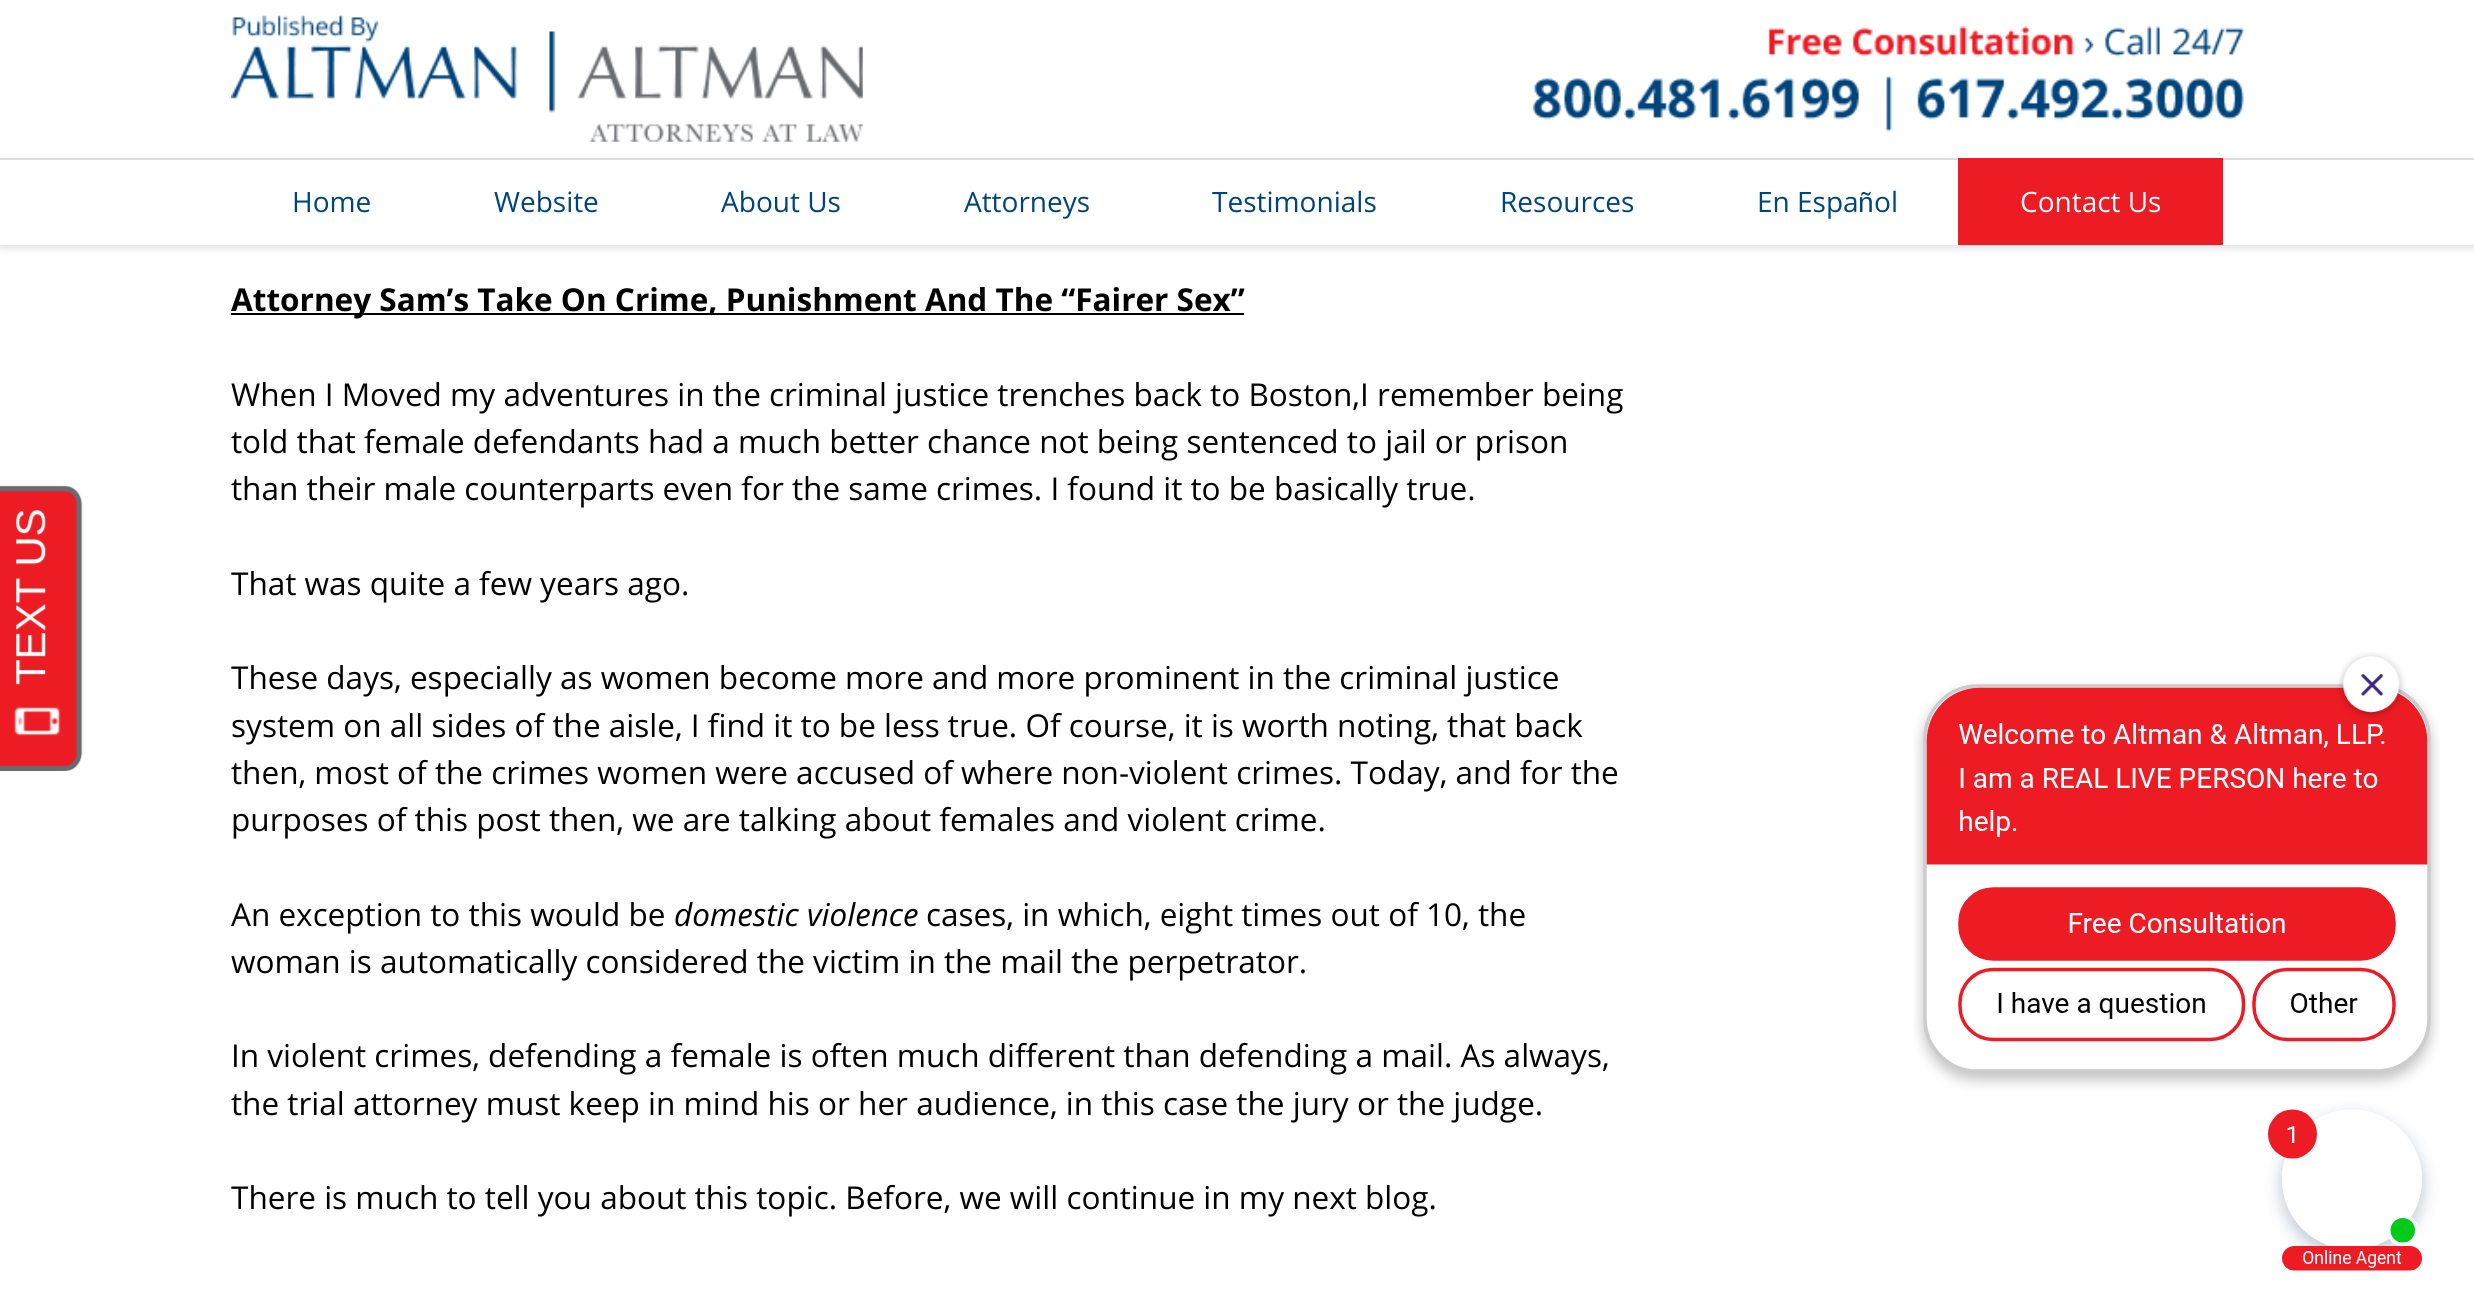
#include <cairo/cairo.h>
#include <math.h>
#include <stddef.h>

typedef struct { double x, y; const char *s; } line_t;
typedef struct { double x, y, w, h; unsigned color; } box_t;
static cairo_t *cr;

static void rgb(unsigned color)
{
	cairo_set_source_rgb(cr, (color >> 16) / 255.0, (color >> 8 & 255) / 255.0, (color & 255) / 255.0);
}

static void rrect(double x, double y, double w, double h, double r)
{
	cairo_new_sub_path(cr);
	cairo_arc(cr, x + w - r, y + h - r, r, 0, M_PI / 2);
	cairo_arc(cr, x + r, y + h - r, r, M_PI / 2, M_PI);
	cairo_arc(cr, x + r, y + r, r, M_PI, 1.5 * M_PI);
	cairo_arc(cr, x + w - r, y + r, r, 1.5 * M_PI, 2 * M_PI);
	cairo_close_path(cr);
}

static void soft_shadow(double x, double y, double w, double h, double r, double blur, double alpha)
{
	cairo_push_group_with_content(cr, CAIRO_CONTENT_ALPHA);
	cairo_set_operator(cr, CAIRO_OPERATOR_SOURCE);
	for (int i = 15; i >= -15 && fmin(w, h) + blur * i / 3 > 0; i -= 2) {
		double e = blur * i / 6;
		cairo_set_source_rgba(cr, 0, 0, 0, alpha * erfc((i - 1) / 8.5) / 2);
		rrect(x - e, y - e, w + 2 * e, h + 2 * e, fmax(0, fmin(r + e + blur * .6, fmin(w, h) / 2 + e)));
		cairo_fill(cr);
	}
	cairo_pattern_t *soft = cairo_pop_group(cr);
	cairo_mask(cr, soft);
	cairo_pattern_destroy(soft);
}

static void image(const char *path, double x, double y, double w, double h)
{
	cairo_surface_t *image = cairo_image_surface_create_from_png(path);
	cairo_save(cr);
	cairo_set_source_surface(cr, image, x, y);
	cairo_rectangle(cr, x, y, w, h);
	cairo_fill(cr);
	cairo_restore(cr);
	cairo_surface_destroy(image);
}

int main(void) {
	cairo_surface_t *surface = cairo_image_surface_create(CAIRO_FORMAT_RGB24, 2474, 1291);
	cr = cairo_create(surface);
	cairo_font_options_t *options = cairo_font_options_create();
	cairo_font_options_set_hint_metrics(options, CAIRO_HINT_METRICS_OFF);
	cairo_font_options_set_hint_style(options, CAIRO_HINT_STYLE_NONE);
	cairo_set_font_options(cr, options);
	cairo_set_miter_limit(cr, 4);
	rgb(0xffffff);
	cairo_paint(cr);
	image("img/1.png", 0, 485, 83, 286);
	rgb(0x000000);
	soft_shadow(0, 2, 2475, 245, 0, 4.5, 0.15);
	rgb(0xffffff);
	cairo_rectangle(cr, 0, 0, 2474, 245);
	cairo_fill(cr);
	image("img/2.png", 231, 15, 632, 127);
	image("img/3.png", 1533, 26, 711, 106);
	{
		static const box_t items[] = {
			{0, 158, 2474, 2, 0xdddddd},
			{1958, 158, 265, 87, 0xed1c24},
			{231, 313, 1013, 2, 0x000000},
		};
		for (size_t i = 0; i < sizeof items / sizeof *items; i++) {
			rgb(items[i].color);
			cairo_rectangle(cr, items[i].x, items[i].y, items[i].w, items[i].h);
			cairo_fill(cr);
		}
	}
	image("img/4.png", 1914, 652, 526, 619);
	cairo_select_font_face(cr, "Open Sans", CAIRO_FONT_SLANT_NORMAL, CAIRO_FONT_WEIGHT_NORMAL);
	cairo_set_font_size(cr, 28);
	rgb(0x00447c);
	{
		static const line_t items[] = {
			{292, 212, "Home"},
			{494, 212, "Website"},
			{721, 212, "About Us"},
			{964, 212, "Attorneys"},
			{1212, 212, "Testimonials"},
			{1500, 212, "Resources"},
			{1757, 212, "En Espa"},
		};
		for (size_t i = 0; i < sizeof items / sizeof *items; i++) {
			cairo_move_to(cr, items[i].x, items[i].y);
			cairo_show_text(cr, items[i].s);
		}
	}
	cairo_select_font_face(cr, "Liberation Sans", CAIRO_FONT_SLANT_NORMAL, CAIRO_FONT_WEIGHT_NORMAL);
	cairo_move_to(cr, 1858, 212);
	cairo_show_text(cr, "ñ");
	cairo_select_font_face(cr, "Open Sans", CAIRO_FONT_SLANT_NORMAL, CAIRO_FONT_WEIGHT_NORMAL);
	cairo_move_to(cr, 1874, 212);
	cairo_show_text(cr, "ol");
	rgb(0xffffff);
	cairo_move_to(cr, 2020, 212);
	cairo_show_text(cr, "Contact Us");
	cairo_select_font_face(cr, "Open Sans", CAIRO_FONT_SLANT_NORMAL, CAIRO_FONT_WEIGHT_BOLD);
	cairo_set_font_size(cr, 31.5);
	rgb(0x000000);
	cairo_move_to(cr, 231, 311);
	cairo_show_text(cr, "Attorney Sam’s Take On Crime, Punishment And The “Fairer Sex”");
	cairo_select_font_face(cr, "Open Sans", CAIRO_FONT_SLANT_NORMAL, CAIRO_FONT_WEIGHT_NORMAL);
	{
		static const line_t items[] = {
			{231, 406, "When I Moved my adventures in the criminal justice trenches back to Boston,I remember being"},
			{231, 453, "told that female defendants had a much better chance not being sentenced to jail or prison"},
			{231, 500, "than their male counterparts even for the same crimes. I found it to be basically true."},
			{231, 595, "That was quite a few years ago."},
			{231, 689, "These days, especially as women become more and more prominent in the criminal justice"},
			{231, 737, "system on all sides of the aisle, I find it to be less true. Of course, it is worth noting, that back"},
			{231, 784, "then, most of the crimes women were accused of where non-violent crimes. Today, and for the"},
			{231, 831, "purposes of this post then, we are talking about females and violent crime."},
			{231, 926, "An exception to this would be"},
		};
		for (size_t i = 0; i < sizeof items / sizeof *items; i++) {
			cairo_move_to(cr, items[i].x, items[i].y);
			cairo_show_text(cr, items[i].s);
		}
	}
	cairo_select_font_face(cr, "Open Sans", CAIRO_FONT_SLANT_ITALIC, CAIRO_FONT_WEIGHT_NORMAL);
	cairo_move_to(cr, 674, 926);
	cairo_show_text(cr, "domestic violence");
	cairo_select_font_face(cr, "Open Sans", CAIRO_FONT_SLANT_NORMAL, CAIRO_FONT_WEIGHT_NORMAL);
	{
		static const line_t items[] = {
			{926, 926, "cases, in which, eight times out of 10, the"},
			{231, 973, "woman is automatically considered the victim in the mail the perpetrator."},
			{231, 1067, "In violent crimes, defending a female is often much different than defending a mail. As always,"},
			{231, 1115, "the trial attorney must keep in mind his or her audience, in this case the jury or the judge."},
			{231, 1209, "There is much to tell you about this topic. Before, we will continue in my next blog."},
		};
		for (size_t i = 0; i < sizeof items / sizeof *items; i++) {
			cairo_move_to(cr, items[i].x, items[i].y);
			cairo_show_text(cr, items[i].s);
		}
	}
	cairo_surface_write_to_png(surface, "page.png");
	cairo_font_options_destroy(options);
	cairo_destroy(cr);
	cairo_surface_destroy(surface);
	return 0;
}
